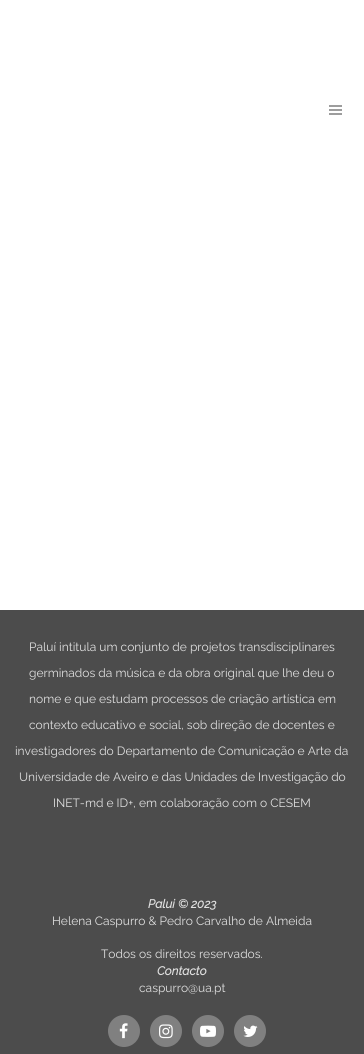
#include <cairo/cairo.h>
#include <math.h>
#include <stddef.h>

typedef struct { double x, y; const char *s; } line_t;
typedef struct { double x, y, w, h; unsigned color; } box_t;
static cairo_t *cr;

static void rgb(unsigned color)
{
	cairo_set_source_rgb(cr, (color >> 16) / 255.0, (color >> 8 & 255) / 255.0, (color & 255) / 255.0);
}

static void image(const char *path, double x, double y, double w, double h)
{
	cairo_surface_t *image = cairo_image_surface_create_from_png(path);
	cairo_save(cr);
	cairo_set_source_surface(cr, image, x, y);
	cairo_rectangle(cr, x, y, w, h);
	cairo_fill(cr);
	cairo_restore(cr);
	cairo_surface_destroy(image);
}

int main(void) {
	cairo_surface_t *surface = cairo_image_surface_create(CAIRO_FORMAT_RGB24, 364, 1054);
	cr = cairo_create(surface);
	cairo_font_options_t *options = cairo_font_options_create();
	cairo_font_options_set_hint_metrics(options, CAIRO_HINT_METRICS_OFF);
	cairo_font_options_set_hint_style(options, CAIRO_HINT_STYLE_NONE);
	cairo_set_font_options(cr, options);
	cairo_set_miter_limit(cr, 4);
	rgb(0xffffff);
	cairo_paint(cr);
	{
		static const box_t items[] = {
			{329, 109, 13, 2, 0x9d9d9d},
			{329, 105, 13, 2, 0x9d9d9d},
			{329, 113, 13, 2, 0x9d9d9d},
			{0, 610, 364, 444, 0x4c4c4c},
		};
		for (size_t i = 0; i < sizeof items / sizeof *items; i++) {
			rgb(items[i].color);
			cairo_rectangle(cr, items[i].x, items[i].y, items[i].w, items[i].h);
			cairo_fill(cr);
		}
	}
	rgb(0x808080);
	cairo_arc(cr, 124, 1031, 16, 0, 2 * M_PI);
	cairo_fill(cr);
	image("img/1.png", 119, 1023, 9, 16);
	cairo_arc(cr, 166, 1031, 16, 0, 2 * M_PI);
	cairo_fill(cr);
	image("img/2.png", 159, 1024, 14, 15);
	cairo_arc(cr, 208, 1031, 16, 0, 2 * M_PI);
	cairo_fill(cr);
	image("img/3.png", 200, 1025, 16, 12);
	cairo_arc(cr, 250, 1031, 16, 0, 2 * M_PI);
	cairo_fill(cr);
	image("img/4.png", 243, 1025, 15, 12);
	cairo_select_font_face(cr, "Raleway", CAIRO_FONT_SLANT_NORMAL, CAIRO_FONT_WEIGHT_NORMAL);
	cairo_set_font_size(cr, 12);
	rgb(0xe0e0e0);
	{
		static const line_t items[] = {
			{29, 651, "Paluí intitula um conjunto de projetos transdisciplinares"},
			{29, 677, "germinados da música e da obra original que lhe deu o"},
			{29, 703, "nome e que estudam processos de criação artística em"},
			{29, 729, "contexto educativo e social, sob direção de docentes e"},
			{15, 755, "investigadores do Departamento de Comunicação e Arte da"},
			{19, 781, "Universidade de Aveiro e das Unidades de Investigação do"},
			{53, 807, "INET-md e ID+, em colaboração com o CESEM"},
		};
		for (size_t i = 0; i < sizeof items / sizeof *items; i++) {
			cairo_move_to(cr, items[i].x, items[i].y);
			cairo_show_text(cr, items[i].s);
		}
	}
	cairo_select_font_face(cr, "Raleway", CAIRO_FONT_SLANT_ITALIC, CAIRO_FONT_WEIGHT_BOLD);
	cairo_move_to(cr, 148, 908);
	cairo_show_text(cr, "Palui © 2023");
	cairo_select_font_face(cr, "Raleway", CAIRO_FONT_SLANT_NORMAL, CAIRO_FONT_WEIGHT_NORMAL);
	cairo_move_to(cr, 52, 925);
	cairo_show_text(cr, "Helena Caspurro & Pedro Carvalho de Almeida");
	cairo_move_to(cr, 101, 958);
	cairo_show_text(cr, "Todos os direitos reservados.");
	cairo_select_font_face(cr, "Raleway", CAIRO_FONT_SLANT_ITALIC, CAIRO_FONT_WEIGHT_BOLD);
	cairo_move_to(cr, 157, 975);
	cairo_show_text(cr, "Contacto");
	cairo_select_font_face(cr, "Raleway", CAIRO_FONT_SLANT_NORMAL, CAIRO_FONT_WEIGHT_NORMAL);
	cairo_move_to(cr, 139, 992);
	cairo_show_text(cr, "caspurro@ua.pt");
	cairo_surface_write_to_png(surface, "page.png");
	cairo_font_options_destroy(options);
	cairo_destroy(cr);
	cairo_surface_destroy(surface);
	return 0;
}
